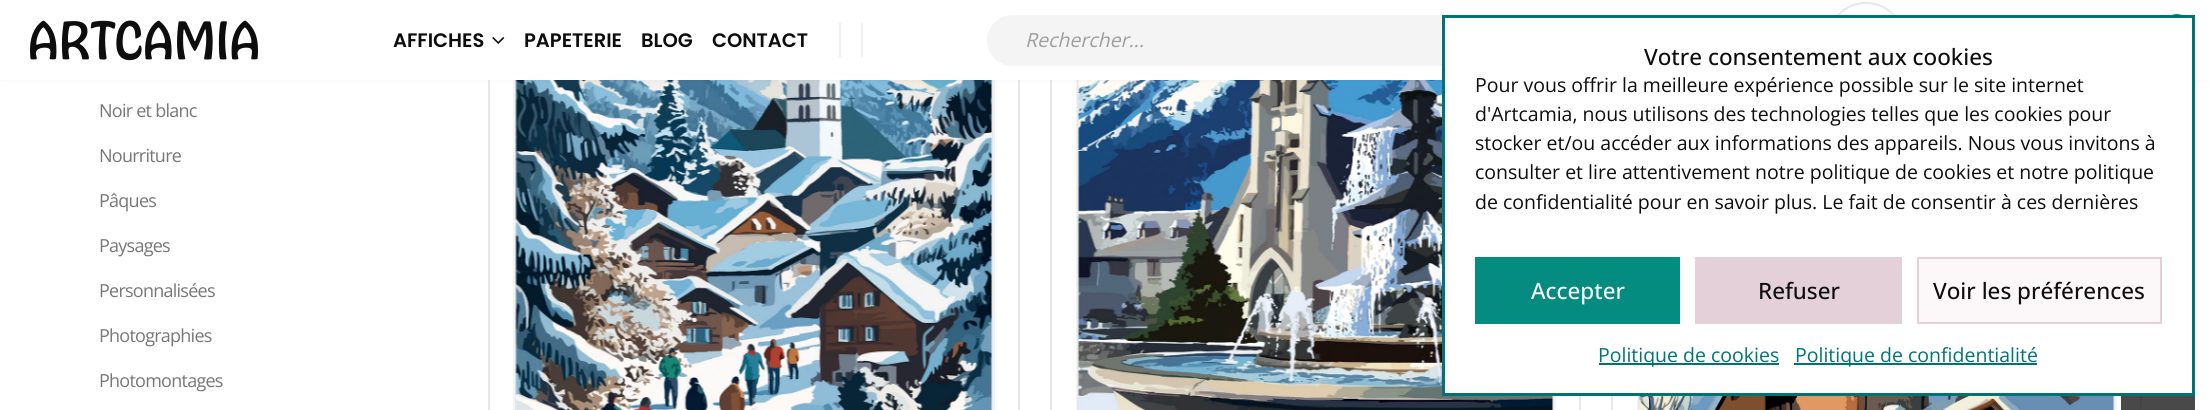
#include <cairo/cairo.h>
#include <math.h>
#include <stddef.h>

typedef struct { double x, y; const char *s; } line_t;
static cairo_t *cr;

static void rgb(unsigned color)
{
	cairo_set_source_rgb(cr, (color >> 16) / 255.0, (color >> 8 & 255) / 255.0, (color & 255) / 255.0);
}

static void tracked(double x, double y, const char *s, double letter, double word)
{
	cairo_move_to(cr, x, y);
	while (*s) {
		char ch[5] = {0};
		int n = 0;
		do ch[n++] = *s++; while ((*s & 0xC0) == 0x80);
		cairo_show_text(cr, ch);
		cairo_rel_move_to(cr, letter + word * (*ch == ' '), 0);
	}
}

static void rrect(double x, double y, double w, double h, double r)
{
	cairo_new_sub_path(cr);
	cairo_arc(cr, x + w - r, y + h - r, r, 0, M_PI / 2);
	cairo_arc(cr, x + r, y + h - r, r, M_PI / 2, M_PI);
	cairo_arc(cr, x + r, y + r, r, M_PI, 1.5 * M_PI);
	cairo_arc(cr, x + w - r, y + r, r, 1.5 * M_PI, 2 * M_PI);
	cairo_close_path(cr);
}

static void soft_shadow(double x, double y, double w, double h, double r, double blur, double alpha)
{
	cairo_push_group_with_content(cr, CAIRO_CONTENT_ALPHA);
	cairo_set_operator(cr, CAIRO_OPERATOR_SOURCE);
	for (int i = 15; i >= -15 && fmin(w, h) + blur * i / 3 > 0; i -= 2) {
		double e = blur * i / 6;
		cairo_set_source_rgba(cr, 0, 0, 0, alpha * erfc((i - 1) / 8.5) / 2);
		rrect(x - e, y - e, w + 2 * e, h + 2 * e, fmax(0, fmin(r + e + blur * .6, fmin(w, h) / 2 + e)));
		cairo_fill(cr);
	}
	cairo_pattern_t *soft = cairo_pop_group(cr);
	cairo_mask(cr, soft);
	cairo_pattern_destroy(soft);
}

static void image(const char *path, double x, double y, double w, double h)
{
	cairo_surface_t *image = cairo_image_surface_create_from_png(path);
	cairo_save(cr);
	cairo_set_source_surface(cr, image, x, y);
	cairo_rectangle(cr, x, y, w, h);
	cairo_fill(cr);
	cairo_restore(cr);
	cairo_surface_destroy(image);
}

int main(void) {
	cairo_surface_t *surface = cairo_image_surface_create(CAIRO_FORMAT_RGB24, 2209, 410);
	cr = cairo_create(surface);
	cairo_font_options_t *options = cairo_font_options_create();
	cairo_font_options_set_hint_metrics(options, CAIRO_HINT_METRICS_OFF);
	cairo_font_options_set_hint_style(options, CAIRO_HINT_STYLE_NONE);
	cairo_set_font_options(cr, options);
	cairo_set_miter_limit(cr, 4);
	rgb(0xffffff);
	cairo_paint(cr);
	cairo_rectangle(cr, 489, -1, 530, 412);
	rgb(0xe7e7e7);
	cairo_stroke(cr);
	cairo_rectangle(cr, 514, -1, 480, 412);
	rgb(0xf4f4f4);
	cairo_stroke(cr);
	cairo_rectangle(cr, 516, -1, 476, 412);
	rgb(0xe7e7e7);
	cairo_stroke(cr);
	image("img/3.png", 515, 80, 477, 330);
	cairo_rectangle(cr, 1051, -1, 529, 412);
	cairo_stroke(cr);
	cairo_rectangle(cr, 1077, -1, 478, 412);
	rgb(0xf4f4f4);
	cairo_stroke(cr);
	cairo_rectangle(cr, 1078, -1, 475, 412);
	rgb(0xe7e7e7);
	cairo_stroke(cr);
	image("img/4.png", 1078, 80, 475, 330);
	cairo_rectangle(cr, 1612, -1, 529, 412);
	cairo_stroke(cr);
	cairo_rectangle(cr, 1638, -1, 478, 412);
	rgb(0xf4f4f4);
	cairo_stroke(cr);
	cairo_rectangle(cr, 1639, -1, 475, 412);
	rgb(0xe7e7e7);
	cairo_stroke(cr);
	rgb(0x000000);
	soft_shadow(0, 0, 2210, 80, 0, 2, 0.06);
	rgb(0xffffff);
	cairo_rectangle(cr, 0, 0, 2209, 80);
	cairo_fill(cr);
	image("img/1.png", 30, 20, 228, 41);
	image("img/2.png", 492, 37, 13, 7);
	rgb(0xf0f0f0);
	cairo_rectangle(cr, 839, 23, 2, 34);
	cairo_fill(cr);
	cairo_rectangle(cr, 861, 23, 2, 34);
	cairo_fill(cr);
	rgb(0xf4f4f4);
	rrect(987, 15, 750, 51, 25.5);
	cairo_fill(cr);
	cairo_arc(cr, 1866, 41, 38, 0, 2 * M_PI);
	rgb(0xe7e7e7);
	cairo_stroke(cr);
	rgb(0x000000);
	soft_shadow(2163, 15, 24, 24, 12, 1.5, 0.3);
	rgb(0x038c7f);
	cairo_arc(cr, 2177, 26, 12, 0, 2 * M_PI);
	cairo_fill(cr);
	image("img/5.png", 1639, 396, 475, 14);
	rgb(0xffffff);
	cairo_rectangle(cr, 1443.5, 16.5, 750, 378);
	cairo_fill_preserve(cr);
	rgb(0x027373);
	cairo_set_line_width(cr, 3);
	cairo_stroke(cr);
	rgb(0x038c7f);
	cairo_rectangle(cr, 1475, 257, 205, 67);
	cairo_fill(cr);
	rgb(0xe3d0d8);
	cairo_rectangle(cr, 1695, 257, 207, 67);
	cairo_fill(cr);
	rgb(0xfcf7f9);
	cairo_rectangle(cr, 1918, 258, 243, 65);
	cairo_fill_preserve(cr);
	rgb(0xe3d0d8);
	cairo_set_line_width(cr, 2);
	cairo_stroke(cr);
	rgb(0x027373);
	cairo_rectangle(cr, 1599, 363, 180, 2);
	cairo_fill(cr);
	cairo_rectangle(cr, 1794, 363, 243, 2);
	cairo_fill(cr);
	cairo_set_source_rgba(cr, 0.051, 0.051, 0.051, 0.75);
	cairo_rectangle(cr, 2121, 396, 74, 14);
	cairo_fill(cr);
	cairo_select_font_face(cr, "Poppins SemiBold", CAIRO_FONT_SLANT_NORMAL, CAIRO_FONT_WEIGHT_NORMAL);
	cairo_set_font_size(cr, 19.5);
	rgb(0x0d0d0d);
	{
		static const line_t items[] = {
			{393, 47, "AFFICHES"},
			{524, 47, "PAPETERIE"},
			{641, 47, "BLOG"},
			{712, 47, "CONTACT"},
		};
		for (size_t i = 0; i < sizeof items / sizeof *items; i++) {
			cairo_move_to(cr, items[i].x, items[i].y);
			cairo_show_text(cr, items[i].s);
		}
	}
	cairo_select_font_face(cr, "Open Sans", CAIRO_FONT_SLANT_ITALIC, CAIRO_FONT_WEIGHT_NORMAL);
	rgb(0x9d9d9d);
	cairo_move_to(cr, 1025, 47);
	cairo_show_text(cr, "Rechercher...");
	cairo_select_font_face(cr, "Open Sans", CAIRO_FONT_SLANT_NORMAL, CAIRO_FONT_WEIGHT_NORMAL);
	cairo_set_font_size(cr, 18);
	rgb(0x777777);
	{
		static const line_t items[] = {
			{99, 117, "Noir et blanc"},
			{99, 162, "Nourriture"},
			{99, 207, "Pâques"},
			{99, 252, "Paysages"},
			{99, 297, "Personnalisées"},
			{99, 342, "Photographies"},
			{99, 387, "Photomontages"},
		};
		for (size_t i = 0; i < sizeof items / sizeof *items; i++) {
			tracked(items[i].x, items[i].y, items[i].s, -0.75, 0);
		}
	}
	cairo_select_font_face(cr, "Open Sans Medium", CAIRO_FONT_SLANT_NORMAL, CAIRO_FONT_WEIGHT_NORMAL);
	cairo_set_font_size(cr, 22.5);
	rgb(0x0d0d0d);
	cairo_move_to(cr, 1644, 65);
	cairo_show_text(cr, "Votre consentement aux cookies");
	cairo_select_font_face(cr, "Open Sans", CAIRO_FONT_SLANT_NORMAL, CAIRO_FONT_WEIGHT_NORMAL);
	cairo_set_font_size(cr, 19.5);
	{
		static const line_t items[] = {
			{1475, 92, "Pour vous offrir la meilleure expérience possible sur le site internet"},
			{1475, 121, "d'Artcamia, nous utilisons des technologies telles que les cookies pour"},
			{1475, 150, "stocker et/ou accéder aux informations des appareils. Nous vous invitons à"},
			{1475, 179, "consulter et lire attentivement notre politique de cookies et notre politique"},
			{1475, 209, "de confidentialité pour en savoir plus. Le fait de consentir à ces dernières"},
		};
		for (size_t i = 0; i < sizeof items / sizeof *items; i++) {
			cairo_move_to(cr, items[i].x, items[i].y);
			cairo_show_text(cr, items[i].s);
		}
	}
	cairo_select_font_face(cr, "Open Sans Medium", CAIRO_FONT_SLANT_NORMAL, CAIRO_FONT_WEIGHT_NORMAL);
	cairo_set_font_size(cr, 22.5);
	rgb(0xffffff);
	cairo_move_to(cr, 1531, 299);
	cairo_show_text(cr, "Accepter");
	rgb(0x0d0d0d);
	cairo_move_to(cr, 1758, 299);
	cairo_show_text(cr, "Refuser");
	cairo_move_to(cr, 1933, 299);
	cairo_show_text(cr, "Voir les préférences");
	cairo_select_font_face(cr, "Open Sans", CAIRO_FONT_SLANT_NORMAL, CAIRO_FONT_WEIGHT_NORMAL);
	cairo_set_font_size(cr, 19.5);
	rgb(0x027373);
	cairo_move_to(cr, 1598, 362);
	cairo_show_text(cr, "Politique de cookies");
	cairo_move_to(cr, 1795, 362);
	cairo_show_text(cr, "Politique de confidentialité");
	cairo_surface_write_to_png(surface, "page.png");
	cairo_font_options_destroy(options);
	cairo_destroy(cr);
	cairo_surface_destroy(surface);
	return 0;
}
